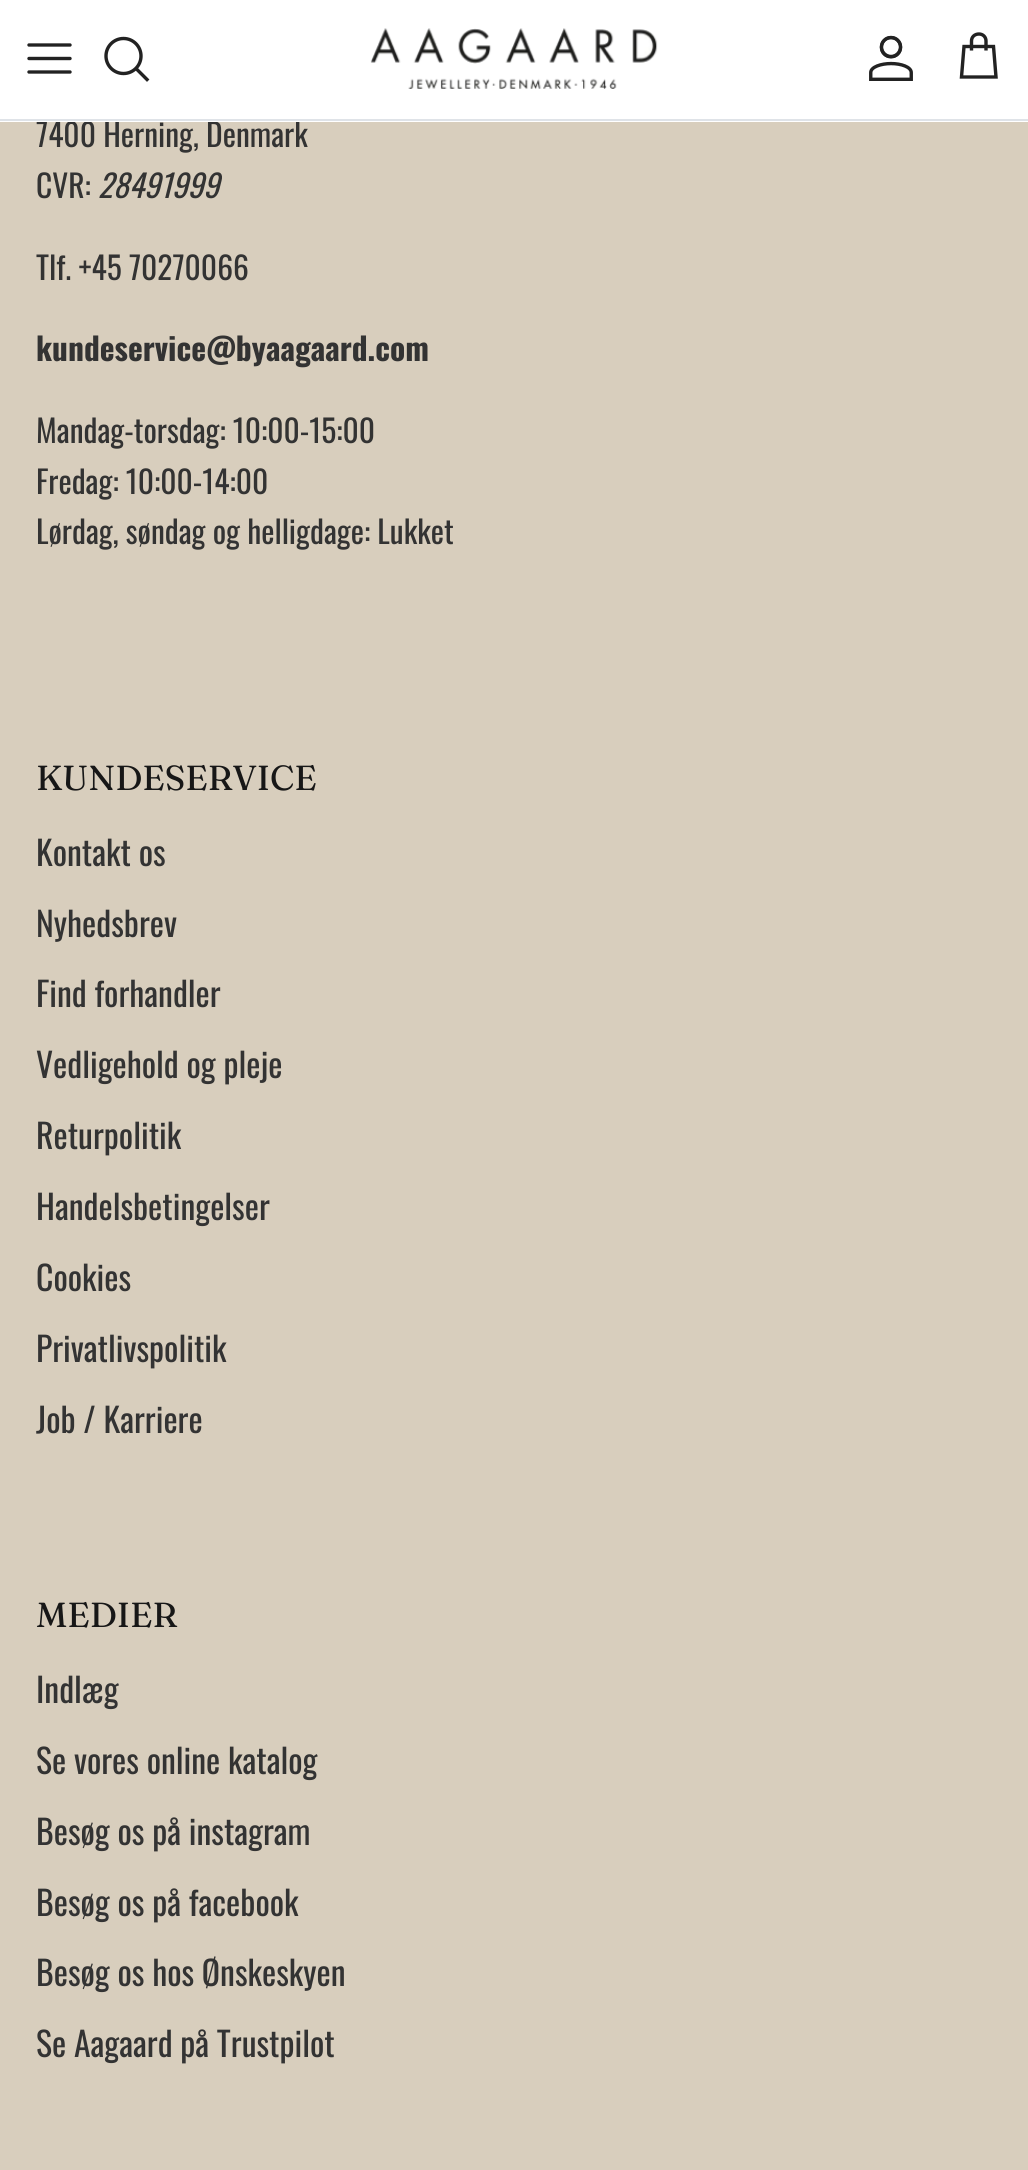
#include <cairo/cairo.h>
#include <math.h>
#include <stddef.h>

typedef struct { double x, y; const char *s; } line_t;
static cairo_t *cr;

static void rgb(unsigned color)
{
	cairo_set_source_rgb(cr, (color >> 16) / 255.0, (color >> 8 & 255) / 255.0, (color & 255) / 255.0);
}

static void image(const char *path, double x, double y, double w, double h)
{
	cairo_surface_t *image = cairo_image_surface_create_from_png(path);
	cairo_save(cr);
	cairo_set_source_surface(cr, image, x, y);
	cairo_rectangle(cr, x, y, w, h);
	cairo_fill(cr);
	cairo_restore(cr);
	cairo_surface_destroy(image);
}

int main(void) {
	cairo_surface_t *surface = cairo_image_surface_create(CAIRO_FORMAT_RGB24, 1028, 2170);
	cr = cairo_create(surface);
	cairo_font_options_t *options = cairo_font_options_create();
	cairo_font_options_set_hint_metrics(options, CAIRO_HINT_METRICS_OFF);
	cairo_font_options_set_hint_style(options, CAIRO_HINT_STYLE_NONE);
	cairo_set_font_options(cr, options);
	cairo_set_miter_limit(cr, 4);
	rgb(0xd8cebd);
	cairo_paint(cr);
	cairo_select_font_face(cr, "Oswald", CAIRO_FONT_SLANT_NORMAL, CAIRO_FONT_WEIGHT_NORMAL);
	cairo_set_font_size(cr, 31.5);
	rgb(0x333333);
	cairo_move_to(cr, 36, 147);
	cairo_show_text(cr, "7400 Herning, Denmark");
	rgb(0xffffff);
	cairo_rectangle(cr, 0, 0, 1028, 122);
	cairo_fill(cr);
	cairo_new_path(cr);
	cairo_move_to(cr, 986, 50.5);
	cairo_line_to(cr, 986, 41);
	cairo_curve_to(cr, 986, 37, 983, 34, 979, 34);
	cairo_curve_to(cr, 974.5, 34, 971.5, 37, 971.5, 41);
	cairo_line_to(cr, 971.5, 50.5);
	cairo_move_to(cr, 964, 46.5);
	cairo_line_to(cr, 993.5, 46.5);
	cairo_line_to(cr, 996, 77);
	cairo_line_to(cr, 961.5, 77);
	cairo_close_path(cr);
	rgb(0x222222);
	cairo_set_line_width(cr, 3.4);
	cairo_stroke(cr);
	image("img/1.png", 370, 28, 288, 61);
	cairo_arc(cr, 123.5, 56, 17.5, 0, 2 * M_PI);
	cairo_stroke(cr);
	cairo_new_path(cr);
	cairo_move_to(cr, 137, 69.5);
	cairo_line_to(cr, 147, 79.5);
	cairo_set_line_cap(cr, CAIRO_LINE_CAP_SQUARE);
	cairo_stroke(cr);
	cairo_new_path(cr);
	cairo_move_to(cr, 29, 58.5);
	cairo_line_to(cr, 70, 58.5);
	cairo_move_to(cr, 29, 45);
	cairo_line_to(cr, 70, 45);
	cairo_move_to(cr, 29, 72);
	cairo_line_to(cr, 70, 72);
	cairo_set_line_cap(cr, CAIRO_LINE_CAP_ROUND);
	cairo_set_line_join(cr, CAIRO_LINE_JOIN_ROUND);
	cairo_stroke(cr);
	image("img/2.png", 869, 35, 44, 46);
	rgb(0xdfe3e8);
	cairo_rectangle(cr, 0, 119, 1028, 2);
	cairo_fill(cr);
	rgb(0x333333);
	cairo_move_to(cr, 36, 198);
	cairo_show_text(cr, "CVR:");
	cairo_select_font_face(cr, "Oswald", CAIRO_FONT_SLANT_ITALIC, CAIRO_FONT_WEIGHT_NORMAL);
	cairo_move_to(cr, 98, 198);
	cairo_show_text(cr, "28491999");
	cairo_select_font_face(cr, "Oswald", CAIRO_FONT_SLANT_NORMAL, CAIRO_FONT_WEIGHT_NORMAL);
	cairo_move_to(cr, 36, 280);
	cairo_show_text(cr, "Tlf. +45 70270066");
	cairo_select_font_face(cr, "Oswald", CAIRO_FONT_SLANT_NORMAL, CAIRO_FONT_WEIGHT_BOLD);
	cairo_move_to(cr, 36, 361);
	cairo_show_text(cr, "kundeservice@byaagaard.com");
	cairo_select_font_face(cr, "Oswald", CAIRO_FONT_SLANT_NORMAL, CAIRO_FONT_WEIGHT_NORMAL);
	{
		static const line_t items[] = {
			{36, 443, "Mandag-torsdag: 10:00-15:00"},
			{36, 494, "Fredag: 10:00-14:00"},
			{36, 544, "Lørdag, søndag og helligdage: Lukket"},
		};
		for (size_t i = 0; i < sizeof items / sizeof *items; i++) {
			cairo_move_to(cr, items[i].x, items[i].y);
			cairo_show_text(cr, items[i].s);
		}
	}
	cairo_select_font_face(cr, "Fraunces", CAIRO_FONT_SLANT_NORMAL, CAIRO_FONT_WEIGHT_NORMAL);
	cairo_set_font_size(cr, 34.75);
	rgb(0x171717);
	cairo_move_to(cr, 36, 790);
	cairo_show_text(cr, "KUNDESERVICE");
	cairo_select_font_face(cr, "Oswald", CAIRO_FONT_SLANT_NORMAL, CAIRO_FONT_WEIGHT_NORMAL);
	cairo_set_font_size(cr, 33.75);
	rgb(0x333333);
	{
		static const line_t items[] = {
			{36, 866, "Kontakt os"},
			{36, 937, "Nyhedsbrev"},
			{36, 1007, "Find forhandler"},
			{36, 1078, "Vedligehold og pleje"},
			{36, 1149, "Returpolitik"},
			{36, 1220, "Handelsbetingelser"},
			{36, 1291, "Cookies"},
			{36, 1362, "Privatlivspolitik"},
			{36, 1433, "Job / Karriere"},
		};
		for (size_t i = 0; i < sizeof items / sizeof *items; i++) {
			cairo_move_to(cr, items[i].x, items[i].y);
			cairo_show_text(cr, items[i].s);
		}
	}
	cairo_select_font_face(cr, "Fraunces", CAIRO_FONT_SLANT_NORMAL, CAIRO_FONT_WEIGHT_NORMAL);
	cairo_set_font_size(cr, 34.75);
	rgb(0x171717);
	cairo_move_to(cr, 36, 1627);
	cairo_show_text(cr, "MEDIER");
	cairo_select_font_face(cr, "Oswald", CAIRO_FONT_SLANT_NORMAL, CAIRO_FONT_WEIGHT_NORMAL);
	cairo_set_font_size(cr, 33.75);
	rgb(0x333333);
	{
		static const line_t items[] = {
			{36, 1703, "Indlæg"},
			{36, 1774, "Se vores online katalog"},
			{36, 1845, "Besøg os på instagram"},
			{36, 1916, "Besøg os på facebook"},
			{36, 1986, "Besøg os hos Ønskeskyen"},
			{36, 2057, "Se Aagaard på Trustpilot"},
		};
		for (size_t i = 0; i < sizeof items / sizeof *items; i++) {
			cairo_move_to(cr, items[i].x, items[i].y);
			cairo_show_text(cr, items[i].s);
		}
	}
	cairo_surface_write_to_png(surface, "page.png");
	cairo_font_options_destroy(options);
	cairo_destroy(cr);
	cairo_surface_destroy(surface);
	return 0;
}
